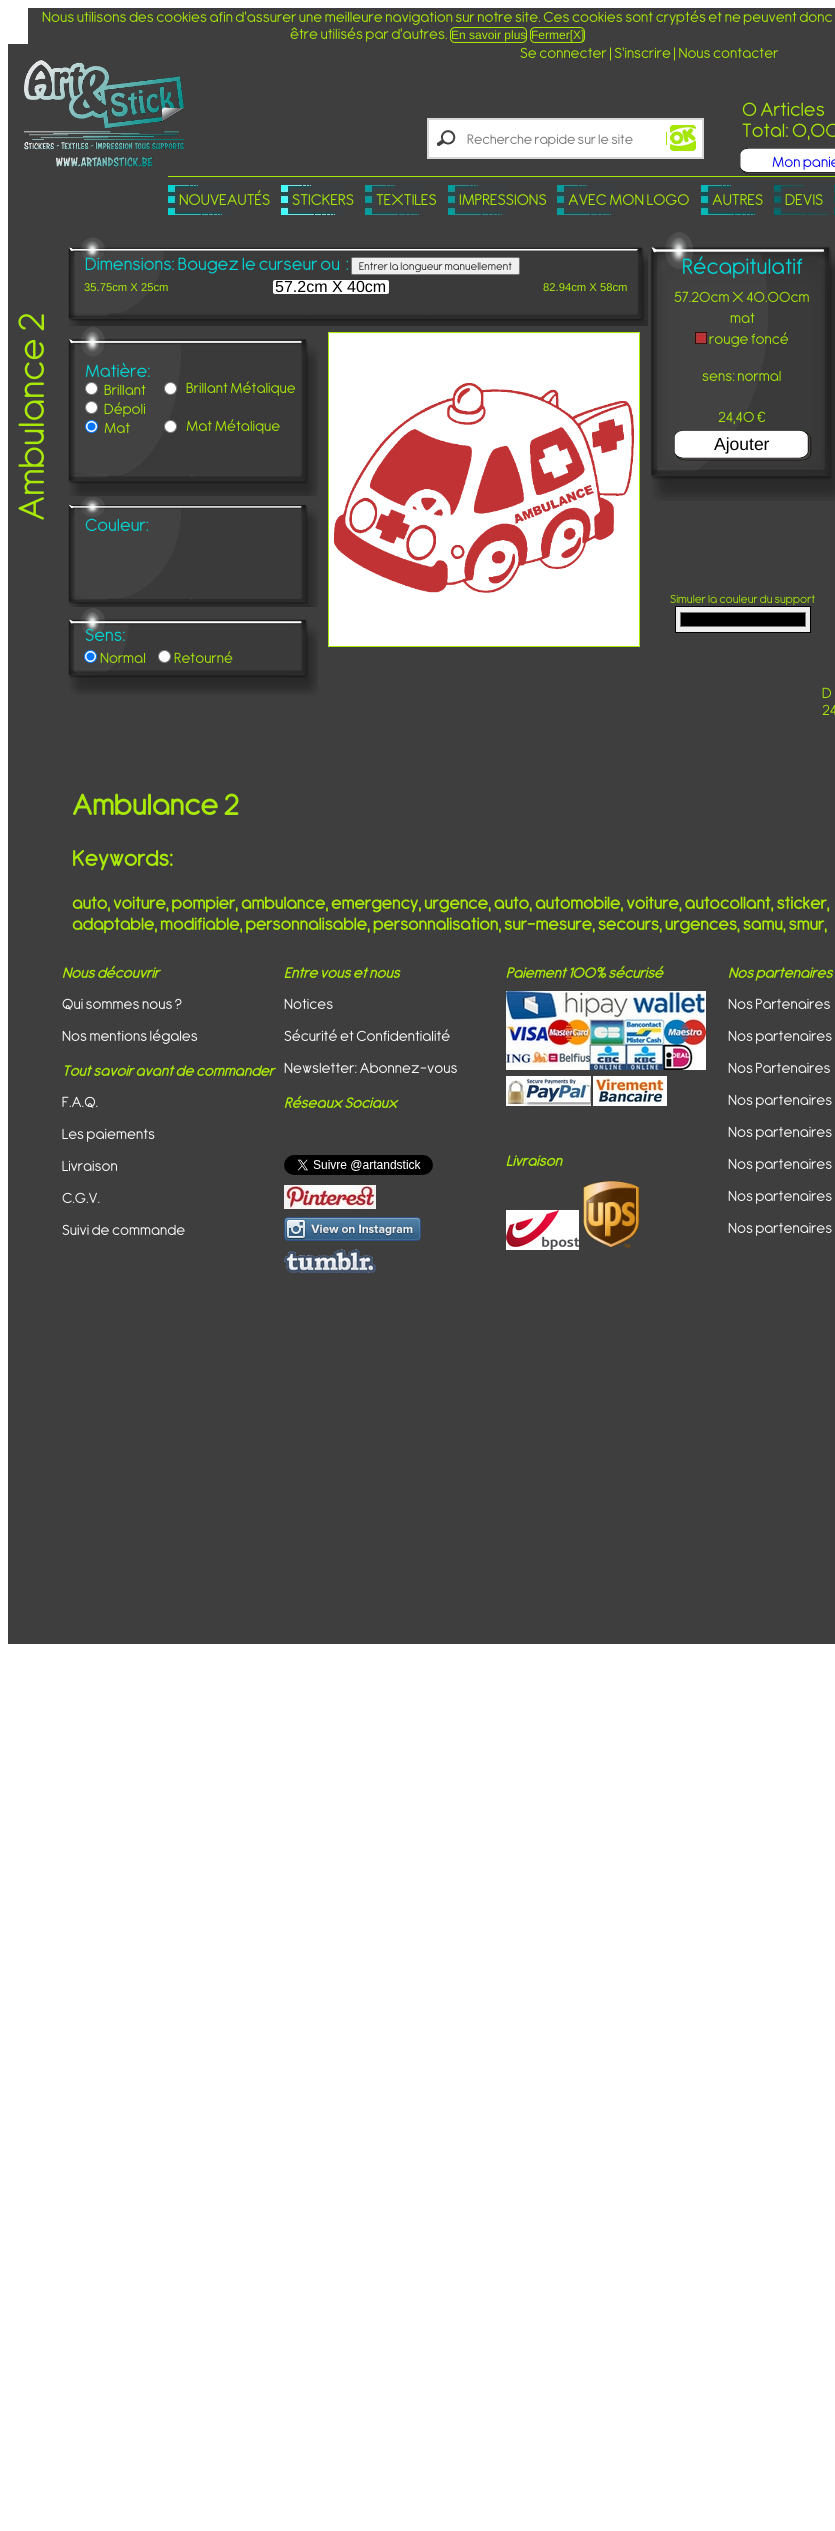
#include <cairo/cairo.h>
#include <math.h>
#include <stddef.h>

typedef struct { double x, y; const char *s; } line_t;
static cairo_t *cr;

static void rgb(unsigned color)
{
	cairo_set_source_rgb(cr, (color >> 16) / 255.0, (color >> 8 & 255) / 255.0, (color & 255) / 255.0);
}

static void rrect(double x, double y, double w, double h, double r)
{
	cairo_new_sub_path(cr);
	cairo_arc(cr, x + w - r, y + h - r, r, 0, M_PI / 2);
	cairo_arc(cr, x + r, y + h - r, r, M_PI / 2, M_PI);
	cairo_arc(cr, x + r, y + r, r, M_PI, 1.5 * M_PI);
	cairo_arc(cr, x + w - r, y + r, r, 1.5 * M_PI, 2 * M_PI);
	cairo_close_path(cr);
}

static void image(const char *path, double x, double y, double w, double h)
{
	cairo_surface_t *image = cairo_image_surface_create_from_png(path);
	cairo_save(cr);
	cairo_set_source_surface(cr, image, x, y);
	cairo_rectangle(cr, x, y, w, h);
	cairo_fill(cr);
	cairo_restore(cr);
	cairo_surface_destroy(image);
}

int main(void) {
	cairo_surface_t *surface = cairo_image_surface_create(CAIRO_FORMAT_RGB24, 835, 2531);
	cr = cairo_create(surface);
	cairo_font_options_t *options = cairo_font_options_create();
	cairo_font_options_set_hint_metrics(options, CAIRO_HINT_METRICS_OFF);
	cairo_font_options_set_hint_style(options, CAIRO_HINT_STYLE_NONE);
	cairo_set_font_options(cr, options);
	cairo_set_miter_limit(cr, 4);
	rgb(0xffffff);
	cairo_paint(cr);
	rgb(0x3e3e3e);
	cairo_rectangle(cr, 28, 8, 807, 36);
	cairo_fill(cr);
	rrect(450.5, 27.5, 76, 15, 4.5);
	rgb(0xa8e907);
	cairo_set_line_width(cr, 1);
	cairo_stroke(cr);
	rrect(530.5, 27.5, 54, 15, 4.5);
	cairo_stroke(cr);
	rgb(0x3e3e3e);
	cairo_rectangle(cr, 8, 44, 827, 1600);
	cairo_fill(cr);
	image("img/1.png", 24, 60, 160, 107);
	rgb(0xffffff);
	cairo_rectangle(cr, 429, 120, 273, 37);
	cairo_fill(cr);
	image("img/2.png", 437, 130, 19, 16);
	cairo_rectangle(cr, 428, 119, 275, 39);
	rgb(0xd8d8d8);
	cairo_set_line_width(cr, 2);
	cairo_stroke(cr);
	image("img/3.png", 666, 125, 30, 26);
	image("img/4.png", 740, 148, 95, 27);
	rgb(0xa8e907);
	cairo_rectangle(cr, 168, 176, 667, 1);
	cairo_fill(cr);
	image("img/5.png", 168, 185, 64, 30);
	image("img/6.png", 281, 185, 62, 30);
	image("img/7.png", 365, 185, 60, 30);
	image("img/7.png", 448, 185, 60, 30);
	image("img/7.png", 557, 185, 60, 30);
	image("img/8.png", 701, 185, 56, 30);
	image("img/9.png", 774, 185, 57, 30);
	image("img/10.png", 834, 185, 1, 30);
	image("img/11.png", 68, 237, 580, 89);
	rgb(0xefefef);
	rrect(351.5, 257.5, 168, 17, 1.5);
	cairo_fill_preserve(cr);
	rgb(0x767676);
	cairo_set_line_width(cr, 1);
	cairo_stroke(cr);
	rgb(0xffffff);
	rrect(273, 280, 116, 14, 2);
	cairo_fill(cr);
	image("img/12.png", 68, 327, 250, 169);
	cairo_arc(cr, 91.5, 388.5, 6, 0, 2 * M_PI);
	cairo_fill_preserve(cr);
	rgb(0x767676);
	cairo_stroke(cr);
	rgb(0xffffff);
	cairo_arc(cr, 170.5, 388.5, 6, 0, 2 * M_PI);
	cairo_fill_preserve(cr);
	rgb(0x767676);
	cairo_stroke(cr);
	rgb(0xffffff);
	cairo_arc(cr, 91.5, 407.5, 6, 0, 2 * M_PI);
	cairo_fill_preserve(cr);
	rgb(0x767676);
	cairo_stroke(cr);
	rgb(0xffffff);
	cairo_arc(cr, 91.5, 426.5, 6, 0, 2 * M_PI);
	cairo_fill_preserve(cr);
	rgb(0x0075ff);
	cairo_stroke(cr);
	cairo_arc(cr, 91.5, 426.5, 4, 0, 2 * M_PI);
	cairo_fill(cr);
	rgb(0xffffff);
	cairo_arc(cr, 170.5, 426.5, 6, 0, 2 * M_PI);
	cairo_fill_preserve(cr);
	rgb(0x767676);
	cairo_stroke(cr);
	image("img/13.png", 68, 496, 250, 111);
	image("img/14.png", 68, 607, 250, 88);
	rgb(0xffffff);
	cairo_arc(cr, 90.5, 656.5, 6, 0, 2 * M_PI);
	cairo_fill_preserve(cr);
	rgb(0x0075ff);
	cairo_stroke(cr);
	cairo_arc(cr, 90.5, 656.5, 4, 0, 2 * M_PI);
	cairo_fill(cr);
	rgb(0xffffff);
	cairo_arc(cr, 164.5, 656.5, 6, 0, 2 * M_PI);
	cairo_fill_preserve(cr);
	rgb(0x767676);
	cairo_stroke(cr);
	image("img/15.png", 648, 232, 187, 269);
	image("img/16.png", 695, 332, 12, 12);
	image("img/17.png", 674, 430, 138, 31);
	cairo_rectangle(cr, 328.5, 332.5, 311, 314);
	rgb(0xa8e907);
	cairo_stroke(cr);
	rgb(0xffffff);
	cairo_rectangle(cr, 329, 333, 310, 313);
	cairo_fill(cr);
	image("img/18.png", 334, 383, 300, 210);
	rgb(0xefefef);
	cairo_rectangle(cr, 675.5, 606.5, 135, 26);
	cairo_fill_preserve(cr);
	rgb(0x000000);
	cairo_stroke(cr);
	cairo_rectangle(cr, 680.5, 612.5, 125, 14);
	cairo_fill_preserve(cr);
	rgb(0x777777);
	cairo_stroke(cr);
	image("img/19.png", 284, 1155, 149, 20);
	image("img/20.png", 284, 1185, 92, 24);
	image("img/21.png", 284, 1217, 137, 24);
	image("img/22.png", 284, 1249, 92, 24);
	image("img/23.png", 506, 991, 200, 79);
	image("img/24.png", 506, 1076, 85, 30);
	image("img/25.png", 593, 1076, 74, 30);
	image("img/26.png", 506, 1210, 73, 40);
	image("img/27.png", 583, 1180, 57, 68);
	cairo_select_font_face(cr, "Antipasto", CAIRO_FONT_SLANT_NORMAL, CAIRO_FONT_WEIGHT_NORMAL);
	cairo_set_font_size(cr, 16);
	rgb(0xa8e907);
	cairo_move_to(cr, 42, 22);
	cairo_show_text(cr, "Nous utilisons des cookies afin d'assurer une meilleure navigation sur notre site. Ces cookies sont cryptés et ne peuvent donc");
	cairo_move_to(cr, 290, 39);
	cairo_show_text(cr, "être utilisés par d'autres.");
	cairo_select_font_face(cr, "Liberation Sans", CAIRO_FONT_SLANT_NORMAL, CAIRO_FONT_WEIGHT_NORMAL);
	cairo_set_font_size(cr, 12);
	cairo_move_to(cr, 451, 39);
	cairo_show_text(cr, "En savoir plus");
	cairo_move_to(cr, 531, 39);
	cairo_show_text(cr, "Fermer[X]");
	cairo_select_font_face(cr, "Antipasto", CAIRO_FONT_SLANT_NORMAL, CAIRO_FONT_WEIGHT_NORMAL);
	cairo_set_font_size(cr, 16);
	cairo_move_to(cr, 520, 58);
	cairo_show_text(cr, "Se connecter | S'inscrire | Nous contacter");
	cairo_set_font_size(cr, 15);
	rgb(0x757575);
	cairo_move_to(cr, 467, 144);
	cairo_show_text(cr, "Recherche rapide sur le site");
	cairo_set_font_size(cr, 21);
	rgb(0xa8e907);
	cairo_move_to(cr, 742, 116);
	cairo_show_text(cr, "0 Articles");
	cairo_move_to(cr, 742, 137);
	cairo_show_text(cr, "Total: 0,00");
	cairo_set_font_size(cr, 16);
	rgb(0x0000ee);
	cairo_move_to(cr, 772, 167);
	cairo_show_text(cr, "Mon panie");
	cairo_set_font_size(cr, 17);
	rgb(0xa8e907);
	{
		static const line_t items[] = {
			{179, 205, "NOUVEAUTÉS"},
			{292, 205, "STICKERS"},
			{376, 205, "TEXTILES"},
			{459, 205, "IMPRESSIONS"},
			{568, 205, "AVEC MON LOGO"},
			{712, 205, "AUTRES"},
			{785, 205, "DEVIS"},
		};
		for (size_t i = 0; i < sizeof items / sizeof *items; i++) {
			cairo_move_to(cr, items[i].x, items[i].y);
			cairo_show_text(cr, items[i].s);
		}
	}
	cairo_set_font_size(cr, 40);
	cairo_save(cr);
	cairo_translate(cr, 44, 521);
	cairo_rotate(cr, -90 * M_PI / 180);
	cairo_move_to(cr, 0, 0);
	cairo_show_text(cr, "Ambulance 2");
	cairo_restore(cr);
	cairo_set_font_size(cr, 19.25);
	rgb(0x00d5d5);
	cairo_move_to(cr, 85, 270);
	cairo_show_text(cr, "Dimensions: Bougez le curseur ou  :");
	cairo_set_font_size(cr, 12);
	rgb(0x231f20);
	cairo_move_to(cr, 359, 270);
	cairo_show_text(cr, "Entrer la longueur manuellement");
	cairo_select_font_face(cr, "Liberation Sans", CAIRO_FONT_SLANT_NORMAL, CAIRO_FONT_WEIGHT_NORMAL);
	cairo_set_font_size(cr, 11.25);
	rgb(0xa8e907);
	cairo_move_to(cr, 84, 291);
	cairo_show_text(cr, "35.75cm X 25cm");
	cairo_set_font_size(cr, 16);
	rgb(0x000000);
	cairo_move_to(cr, 275, 292);
	cairo_show_text(cr, "57.2cm X 40cm");
	cairo_set_font_size(cr, 11.25);
	rgb(0xa8e907);
	cairo_move_to(cr, 543, 291);
	cairo_show_text(cr, "82.94cm X 58cm");
	cairo_select_font_face(cr, "Antipasto", CAIRO_FONT_SLANT_NORMAL, CAIRO_FONT_WEIGHT_NORMAL);
	cairo_set_font_size(cr, 19.25);
	rgb(0x00d5d5);
	cairo_move_to(cr, 85, 377);
	cairo_show_text(cr, "Matière:");
	cairo_set_font_size(cr, 16);
	rgb(0xa8e907);
	{
		static const line_t items[] = {
			{104, 395, "Brillant"},
			{186, 393, "Brillant Métalique"},
			{104, 414, "Dépoli"},
			{104, 433, "Mat"},
			{186, 431, "Mat Métalique"},
		};
		for (size_t i = 0; i < sizeof items / sizeof *items; i++) {
			cairo_move_to(cr, items[i].x, items[i].y);
			cairo_show_text(cr, items[i].s);
		}
	}
	cairo_set_font_size(cr, 19.25);
	rgb(0x00d5d5);
	cairo_move_to(cr, 85, 531);
	cairo_show_text(cr, "Couleur:");
	cairo_move_to(cr, 85, 641);
	cairo_show_text(cr, "Sens:");
	cairo_set_font_size(cr, 16);
	rgb(0xa8e907);
	cairo_move_to(cr, 100, 663);
	cairo_show_text(cr, "Normal");
	cairo_move_to(cr, 174, 663);
	cairo_show_text(cr, "Retourné");
	cairo_set_font_size(cr, 24);
	rgb(0x00d5d5);
	cairo_move_to(cr, 682, 274);
	cairo_show_text(cr, "Récapitulatif");
	cairo_set_font_size(cr, 16);
	rgb(0xa8e907);
	{
		static const line_t items[] = {
			{674, 302, "57.20cm X 40.00cm"},
			{730, 323, "mat"},
			{709, 344, "rouge foncé"},
			{702, 381, "sens: normal"},
			{718, 422, "24,40 €"},
		};
		for (size_t i = 0; i < sizeof items / sizeof *items; i++) {
			cairo_move_to(cr, items[i].x, items[i].y);
			cairo_show_text(cr, items[i].s);
		}
	}
	cairo_select_font_face(cr, "Liberation Sans", CAIRO_FONT_SLANT_NORMAL, CAIRO_FONT_WEIGHT_NORMAL);
	cairo_set_font_size(cr, 17.5);
	rgb(0x000000);
	cairo_move_to(cr, 714, 450);
	cairo_show_text(cr, "Ajouter");
	cairo_select_font_face(cr, "Antipasto", CAIRO_FONT_SLANT_NORMAL, CAIRO_FONT_WEIGHT_NORMAL);
	cairo_set_font_size(cr, 12.75);
	rgb(0xa8e907);
	cairo_move_to(cr, 670, 603);
	cairo_show_text(cr, "Simuler la couleur du support");
	cairo_set_font_size(cr, 16);
	cairo_move_to(cr, 822, 698);
	cairo_show_text(cr, "D");
	cairo_move_to(cr, 822, 715);
	cairo_show_text(cr, "24");
	cairo_select_font_face(cr, "Antipasto", CAIRO_FONT_SLANT_NORMAL, CAIRO_FONT_WEIGHT_BOLD);
	cairo_set_font_size(cr, 32);
	cairo_move_to(cr, 72, 815);
	cairo_show_text(cr, "Ambulance 2");
	cairo_set_font_size(cr, 24);
	cairo_move_to(cr, 72, 866);
	cairo_show_text(cr, "Keywords:");
	cairo_set_font_size(cr, 18.7);
	cairo_move_to(cr, 72, 909);
	cairo_show_text(cr, "auto, voiture, pompier, ambulance, emergency, urgence, auto, automobile, voiture, autocollant, sticker,");
	cairo_move_to(cr, 72, 930);
	cairo_show_text(cr, "adaptable, modifiable, personnalisable, personnalisation, sur-mesure, secours, urgences, samu, smur,");
	cairo_select_font_face(cr, "Antipasto", CAIRO_FONT_SLANT_ITALIC, CAIRO_FONT_WEIGHT_BOLD);
	cairo_set_font_size(cr, 16);
	cairo_move_to(cr, 62, 978);
	cairo_show_text(cr, "Nous découvrir");
	cairo_select_font_face(cr, "Antipasto", CAIRO_FONT_SLANT_NORMAL, CAIRO_FONT_WEIGHT_NORMAL);
	rgb(0xffffff);
	cairo_move_to(cr, 62, 1009);
	cairo_show_text(cr, "Qui sommes nous ?");
	cairo_move_to(cr, 62, 1041);
	cairo_show_text(cr, "Nos mentions légales");
	cairo_select_font_face(cr, "Antipasto", CAIRO_FONT_SLANT_ITALIC, CAIRO_FONT_WEIGHT_BOLD);
	rgb(0xa8e907);
	cairo_move_to(cr, 62, 1076);
	cairo_show_text(cr, "Tout savoir avant de commander");
	cairo_select_font_face(cr, "Antipasto", CAIRO_FONT_SLANT_NORMAL, CAIRO_FONT_WEIGHT_NORMAL);
	rgb(0xffffff);
	{
		static const line_t items[] = {
			{62, 1107, "F.A.Q."},
			{62, 1139, "Les paiements"},
			{62, 1171, "Livraison"},
			{62, 1203, "C.G.V."},
			{62, 1235, "Suivi de commande"},
		};
		for (size_t i = 0; i < sizeof items / sizeof *items; i++) {
			cairo_move_to(cr, items[i].x, items[i].y);
			cairo_show_text(cr, items[i].s);
		}
	}
	cairo_select_font_face(cr, "Antipasto", CAIRO_FONT_SLANT_ITALIC, CAIRO_FONT_WEIGHT_BOLD);
	rgb(0xa8e907);
	cairo_move_to(cr, 284, 978);
	cairo_show_text(cr, "Entre vous et nous");
	cairo_select_font_face(cr, "Antipasto", CAIRO_FONT_SLANT_NORMAL, CAIRO_FONT_WEIGHT_NORMAL);
	rgb(0xffffff);
	{
		static const line_t items[] = {
			{284, 1009, "Notices"},
			{284, 1041, "Sécurité et Confidentialité"},
			{284, 1073, "Newsletter: Abonnez-vous"},
		};
		for (size_t i = 0; i < sizeof items / sizeof *items; i++) {
			cairo_move_to(cr, items[i].x, items[i].y);
			cairo_show_text(cr, items[i].s);
		}
	}
	cairo_select_font_face(cr, "Antipasto", CAIRO_FONT_SLANT_ITALIC, CAIRO_FONT_WEIGHT_BOLD);
	rgb(0xa8e907);
	{
		static const line_t items[] = {
			{284, 1108, "Réseaux Sociaux"},
			{506, 978, "Paiement 100% sécurisé"},
			{506, 1166, "Livraison"},
			{728, 978, "Nos partenaires"},
		};
		for (size_t i = 0; i < sizeof items / sizeof *items; i++) {
			cairo_move_to(cr, items[i].x, items[i].y);
			cairo_show_text(cr, items[i].s);
		}
	}
	cairo_select_font_face(cr, "Antipasto", CAIRO_FONT_SLANT_NORMAL, CAIRO_FONT_WEIGHT_NORMAL);
	rgb(0xffffff);
	{
		static const line_t items[] = {
			{728, 1009, "Nos Partenaires"},
			{728, 1041, "Nos partenaires"},
			{728, 1073, "Nos Partenaires"},
			{728, 1105, "Nos partenaires"},
			{728, 1137, "Nos partenaires"},
			{728, 1169, "Nos partenaires"},
			{728, 1201, "Nos partenaires"},
			{728, 1233, "Nos partenaires"},
		};
		for (size_t i = 0; i < sizeof items / sizeof *items; i++) {
			cairo_move_to(cr, items[i].x, items[i].y);
			cairo_show_text(cr, items[i].s);
		}
	}
	cairo_surface_write_to_png(surface, "page.png");
	cairo_font_options_destroy(options);
	cairo_destroy(cr);
	cairo_surface_destroy(surface);
	return 0;
}
